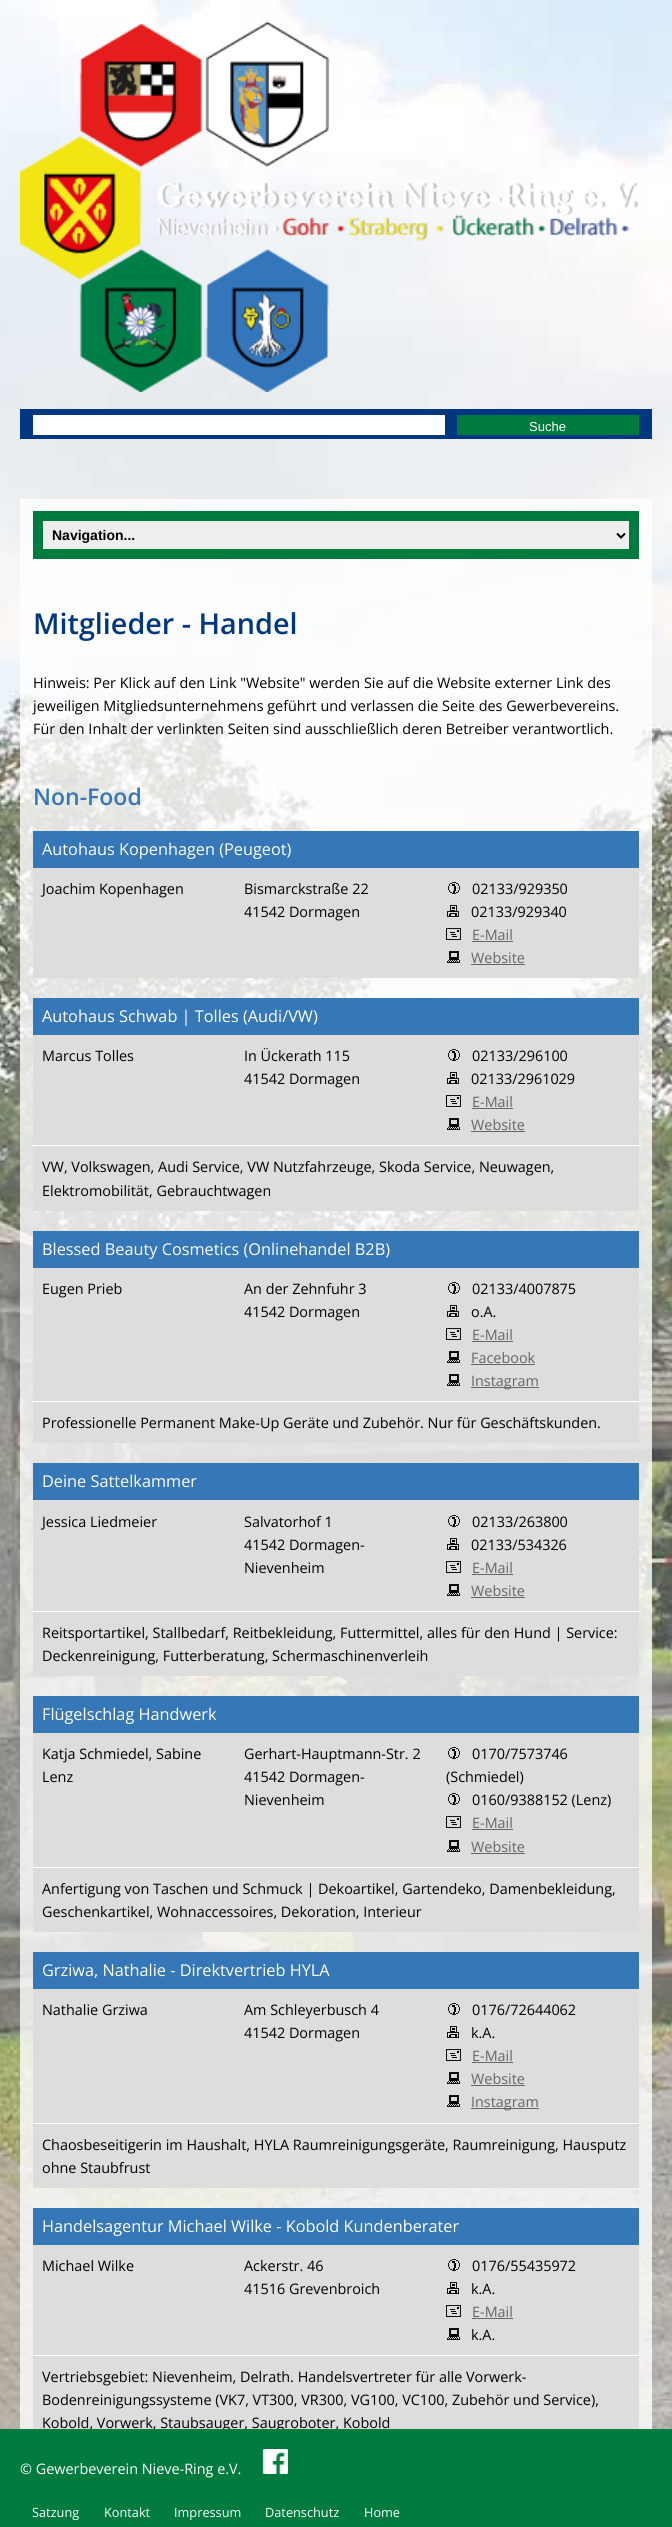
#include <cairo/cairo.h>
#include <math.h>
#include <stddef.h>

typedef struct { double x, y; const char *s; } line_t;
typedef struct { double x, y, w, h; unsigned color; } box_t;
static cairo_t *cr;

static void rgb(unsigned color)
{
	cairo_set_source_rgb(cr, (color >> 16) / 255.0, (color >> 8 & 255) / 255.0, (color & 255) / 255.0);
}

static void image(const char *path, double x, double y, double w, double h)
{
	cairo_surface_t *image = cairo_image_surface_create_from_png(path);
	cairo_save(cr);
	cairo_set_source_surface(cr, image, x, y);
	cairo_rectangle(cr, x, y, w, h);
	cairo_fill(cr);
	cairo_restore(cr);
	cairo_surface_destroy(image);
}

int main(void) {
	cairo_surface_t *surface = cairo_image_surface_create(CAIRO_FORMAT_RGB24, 672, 2527);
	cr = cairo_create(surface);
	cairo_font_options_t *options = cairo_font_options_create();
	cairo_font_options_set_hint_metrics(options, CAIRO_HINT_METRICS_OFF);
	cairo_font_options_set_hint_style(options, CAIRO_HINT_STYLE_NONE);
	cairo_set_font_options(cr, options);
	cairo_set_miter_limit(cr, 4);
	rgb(0xffffff);
	cairo_paint(cr);
	image("img/1.png", 0, 0, 672, 2429);
	image("img/2.png", 20, 21, 618, 371);
	rgb(0x013781);
	cairo_rectangle(cr, 20, 409, 632, 30);
	cairo_fill(cr);
	rgb(0xffffff);
	cairo_rectangle(cr, 33, 415, 412, 20);
	cairo_fill(cr);
	rgb(0x007b3f);
	cairo_rectangle(cr, 457, 415, 182, 20);
	cairo_fill(cr);
	cairo_set_source_rgba(cr, 1, 1, 1, 0.8);
	cairo_rectangle(cr, 20, 499, 632, 92);
	cairo_fill(cr);
	rgb(0xeeeeee);
	cairo_rectangle(cr, 38, 516, 596, 38);
	cairo_fill_preserve(cr);
	rgb(0x007b3f);
	cairo_set_line_width(cr, 10);
	cairo_stroke(cr);
	cairo_new_path(cr);
	cairo_move_to(cr, 617, 533.5);
	cairo_line_to(cr, 621, 537.5);
	cairo_line_to(cr, 625, 533.5);
	rgb(0x000000);
	cairo_set_line_width(cr, 2);
	cairo_stroke(cr);
	cairo_set_source_rgba(cr, 1, 1, 1, 0.8);
	cairo_rectangle(cr, 20, 591, 632, 1838);
	cairo_fill(cr);
	rgb(0x3677b7);
	cairo_rectangle(cr, 33, 831, 606, 37);
	cairo_fill(cr);
	rgb(0xdddddd);
	cairo_rectangle(cr, 33, 868, 606, 110);
	cairo_fill(cr);
	image("img/3.png", 448, 882, 12, 12);
	image("img/4.png", 447, 905, 12, 12);
	image("img/5.png", 446, 928, 15, 12);
	rgb(0x666666);
	cairo_rectangle(cr, 472, 941, 41, 1);
	cairo_fill(cr);
	image("img/6.png", 447, 951, 13, 12);
	{
		static const box_t items[] = {
			{471, 964, 54, 1, 0x666666},
			{33, 998, 606, 37, 0x3677b7},
			{33, 1035, 606, 110, 0xdddddd},
		};
		for (size_t i = 0; i < sizeof items / sizeof *items; i++) {
			rgb(items[i].color);
			cairo_rectangle(cr, items[i].x, items[i].y, items[i].w, items[i].h);
			cairo_fill(cr);
		}
	}
	image("img/3.png", 448, 1049, 12, 12);
	image("img/4.png", 447, 1072, 12, 12);
	image("img/5.png", 446, 1095, 15, 12);
	rgb(0x666666);
	cairo_rectangle(cr, 472, 1108, 41, 1);
	cairo_fill(cr);
	image("img/6.png", 447, 1118, 13, 12);
	{
		static const box_t items[] = {
			{471, 1131, 54, 1, 0x666666},
			{33, 1146, 606, 65, 0xdddddd},
			{32, 1145, 608, 1, 0xffffff},
			{33, 1231, 606, 37, 0x3677b7},
			{33, 1268, 606, 133, 0xdddddd},
		};
		for (size_t i = 0; i < sizeof items / sizeof *items; i++) {
			rgb(items[i].color);
			cairo_rectangle(cr, items[i].x, items[i].y, items[i].w, items[i].h);
			cairo_fill(cr);
		}
	}
	image("img/3.png", 448, 1282, 12, 12);
	image("img/4.png", 447, 1305, 12, 12);
	image("img/5.png", 446, 1328, 15, 12);
	rgb(0x666666);
	cairo_rectangle(cr, 472, 1341, 41, 1);
	cairo_fill(cr);
	image("img/6.png", 447, 1351, 13, 12);
	cairo_rectangle(cr, 471, 1364, 64, 1);
	cairo_fill(cr);
	image("img/6.png", 447, 1374, 13, 12);
	{
		static const box_t items[] = {
			{471, 1387, 68, 1, 0x666666},
			{33, 1402, 606, 41, 0xdddddd},
			{32, 1401, 608, 1, 0xffffff},
			{33, 1463, 606, 37, 0x3677b7},
			{33, 1500, 606, 111, 0xdddddd},
		};
		for (size_t i = 0; i < sizeof items / sizeof *items; i++) {
			rgb(items[i].color);
			cairo_rectangle(cr, items[i].x, items[i].y, items[i].w, items[i].h);
			cairo_fill(cr);
		}
	}
	image("img/3.png", 448, 1515, 12, 12);
	image("img/4.png", 447, 1538, 12, 12);
	image("img/5.png", 446, 1561, 15, 12);
	rgb(0x666666);
	cairo_rectangle(cr, 472, 1574, 41, 1);
	cairo_fill(cr);
	image("img/6.png", 447, 1584, 13, 12);
	{
		static const box_t items[] = {
			{471, 1597, 54, 1, 0x666666},
			{33, 1612, 606, 64, 0xdddddd},
			{32, 1611, 608, 1, 0xffffff},
			{33, 1696, 606, 37, 0x3677b7},
			{33, 1733, 606, 134, 0xdddddd},
		};
		for (size_t i = 0; i < sizeof items / sizeof *items; i++) {
			rgb(items[i].color);
			cairo_rectangle(cr, items[i].x, items[i].y, items[i].w, items[i].h);
			cairo_fill(cr);
		}
	}
	image("img/3.png", 448, 1747, 12, 12);
	image("img/3.png", 448, 1793, 12, 12);
	image("img/5.png", 446, 1816, 15, 12);
	rgb(0x666666);
	cairo_rectangle(cr, 472, 1829, 41, 1);
	cairo_fill(cr);
	image("img/6.png", 447, 1840, 13, 12);
	{
		static const box_t items[] = {
			{471, 1853, 54, 1, 0x666666},
			{33, 1868, 606, 64, 0xdddddd},
			{32, 1867, 608, 1, 0xffffff},
			{33, 1952, 606, 37, 0x3677b7},
			{33, 1989, 606, 134, 0xdddddd},
		};
		for (size_t i = 0; i < sizeof items / sizeof *items; i++) {
			rgb(items[i].color);
			cairo_rectangle(cr, items[i].x, items[i].y, items[i].w, items[i].h);
			cairo_fill(cr);
		}
	}
	image("img/3.png", 448, 2003, 12, 12);
	image("img/4.png", 447, 2026, 12, 12);
	image("img/5.png", 446, 2049, 15, 12);
	rgb(0x666666);
	cairo_rectangle(cr, 472, 2062, 41, 1);
	cairo_fill(cr);
	image("img/6.png", 447, 2072, 13, 12);
	cairo_rectangle(cr, 471, 2085, 54, 1);
	cairo_fill(cr);
	image("img/6.png", 447, 2095, 13, 12);
	{
		static const box_t items[] = {
			{471, 2108, 68, 1, 0x666666},
			{33, 2124, 606, 64, 0xdddddd},
			{32, 2123, 608, 1, 0xffffff},
			{33, 2208, 606, 37, 0x3677b7},
			{33, 2245, 606, 110, 0xdddddd},
		};
		for (size_t i = 0; i < sizeof items / sizeof *items; i++) {
			rgb(items[i].color);
			cairo_rectangle(cr, items[i].x, items[i].y, items[i].w, items[i].h);
			cairo_fill(cr);
		}
	}
	image("img/3.png", 448, 2259, 12, 12);
	image("img/4.png", 447, 2282, 12, 12);
	image("img/5.png", 446, 2305, 15, 12);
	rgb(0x666666);
	cairo_rectangle(cr, 472, 2318, 41, 1);
	cairo_fill(cr);
	image("img/6.png", 447, 2328, 13, 12);
	rgb(0xdddddd);
	cairo_rectangle(cr, 33, 2356, 606, 73);
	cairo_fill(cr);
	rgb(0xffffff);
	cairo_rectangle(cr, 32, 2355, 608, 1);
	cairo_fill(cr);
	cairo_select_font_face(cr, "Liberation Sans", CAIRO_FONT_SLANT_NORMAL, CAIRO_FONT_WEIGHT_NORMAL);
	cairo_set_font_size(cr, 13);
	cairo_move_to(cr, 529, 431);
	cairo_show_text(cr, "Suche");
	cairo_select_font_face(cr, "Liberation Sans", CAIRO_FONT_SLANT_NORMAL, CAIRO_FONT_WEIGHT_BOLD);
	cairo_set_font_size(cr, 14);
	rgb(0x000000);
	cairo_move_to(cr, 52, 540);
	cairo_show_text(cr, "Navigation...");
	cairo_select_font_face(cr, "Open Sans SemiBold", CAIRO_FONT_SLANT_NORMAL, CAIRO_FONT_WEIGHT_NORMAL);
	cairo_set_font_size(cr, 28.75);
	rgb(0x013781);
	cairo_move_to(cr, 33, 634);
	cairo_show_text(cr, "Mitglieder - Handel");
	cairo_select_font_face(cr, "Open Sans", CAIRO_FONT_SLANT_NORMAL, CAIRO_FONT_WEIGHT_NORMAL);
	cairo_set_font_size(cr, 14.4);
	rgb(0x000000);
	{
		static const line_t items[] = {
			{33, 688, "Hinweis: Per Klick auf den Link \"Website\" werden Sie auf die Website externer Link des"},
			{33, 711, "jeweiligen Mitgliedsunternehmens geführt und verlassen die Seite des Gewerbevereins."},
			{33, 734, "Für den Inhalt der verlinkten Seiten sind ausschließlich deren Betreiber verantwortlich."},
		};
		for (size_t i = 0; i < sizeof items / sizeof *items; i++) {
			cairo_move_to(cr, items[i].x, items[i].y);
			cairo_show_text(cr, items[i].s);
		}
	}
	cairo_select_font_face(cr, "Open Sans SemiBold", CAIRO_FONT_SLANT_NORMAL, CAIRO_FONT_WEIGHT_NORMAL);
	cairo_set_font_size(cr, 23);
	rgb(0x3677b7);
	cairo_move_to(cr, 33, 805);
	cairo_show_text(cr, "Non-Food");
	cairo_select_font_face(cr, "Open Sans", CAIRO_FONT_SLANT_NORMAL, CAIRO_FONT_WEIGHT_NORMAL);
	cairo_set_font_size(cr, 16.3);
	rgb(0xffffff);
	cairo_move_to(cr, 42, 855);
	cairo_show_text(cr, "Autohaus Kopenhagen (Peugeot)");
	cairo_set_font_size(cr, 14.4);
	rgb(0x000000);
	{
		static const line_t items[] = {
			{42, 894, "Joachim Kopenhagen"},
			{244, 894, "Bismarckstraße 22"},
			{244, 917, "41542 Dormagen"},
			{472, 894, "02133/929350"},
			{471, 917, "02133/929340"},
		};
		for (size_t i = 0; i < sizeof items / sizeof *items; i++) {
			cairo_move_to(cr, items[i].x, items[i].y);
			cairo_show_text(cr, items[i].s);
		}
	}
	rgb(0x666666);
	cairo_move_to(cr, 472, 940);
	cairo_show_text(cr, "E-Mail");
	cairo_move_to(cr, 471, 963);
	cairo_show_text(cr, "Website");
	cairo_set_font_size(cr, 16.3);
	rgb(0xffffff);
	cairo_move_to(cr, 42, 1022);
	cairo_show_text(cr, "Autohaus Schwab | Tolles (Audi/VW)");
	cairo_set_font_size(cr, 14.4);
	rgb(0x000000);
	{
		static const line_t items[] = {
			{42, 1061, "Marcus Tolles"},
			{244, 1061, "In Ückerath 115"},
			{244, 1084, "41542 Dormagen"},
			{472, 1061, "02133/296100"},
			{471, 1084, "02133/2961029"},
		};
		for (size_t i = 0; i < sizeof items / sizeof *items; i++) {
			cairo_move_to(cr, items[i].x, items[i].y);
			cairo_show_text(cr, items[i].s);
		}
	}
	rgb(0x666666);
	cairo_move_to(cr, 472, 1107);
	cairo_show_text(cr, "E-Mail");
	cairo_move_to(cr, 471, 1130);
	cairo_show_text(cr, "Website");
	rgb(0x000000);
	cairo_move_to(cr, 42, 1172);
	cairo_show_text(cr, "VW, Volkswagen, Audi Service, VW Nutzfahrzeuge, Skoda Service, Neuwagen,");
	cairo_move_to(cr, 42, 1196);
	cairo_show_text(cr, "Elektromobilität, Gebrauchtwagen");
	cairo_set_font_size(cr, 16.3);
	rgb(0xffffff);
	cairo_move_to(cr, 42, 1255);
	cairo_show_text(cr, "Blessed Beauty Cosmetics (Onlinehandel B2B)");
	cairo_set_font_size(cr, 14.4);
	rgb(0x000000);
	{
		static const line_t items[] = {
			{42, 1294, "Eugen Prieb"},
			{244, 1294, "An der Zehnfuhr 3"},
			{244, 1317, "41542 Dormagen"},
			{472, 1294, "02133/4007875"},
			{471, 1317, "o.A."},
		};
		for (size_t i = 0; i < sizeof items / sizeof *items; i++) {
			cairo_move_to(cr, items[i].x, items[i].y);
			cairo_show_text(cr, items[i].s);
		}
	}
	rgb(0x666666);
	{
		static const line_t items[] = {
			{472, 1340, "E-Mail"},
			{471, 1363, "Facebook"},
			{471, 1386, "Instagram"},
		};
		for (size_t i = 0; i < sizeof items / sizeof *items; i++) {
			cairo_move_to(cr, items[i].x, items[i].y);
			cairo_show_text(cr, items[i].s);
		}
	}
	rgb(0x000000);
	cairo_move_to(cr, 42, 1428);
	cairo_show_text(cr, "Professionelle Permanent Make-Up Geräte und Zubehör. Nur für Geschäftskunden.");
	cairo_set_font_size(cr, 16.3);
	rgb(0xffffff);
	cairo_move_to(cr, 42, 1487);
	cairo_show_text(cr, "Deine Sattelkammer");
	cairo_set_font_size(cr, 14.4);
	rgb(0x000000);
	{
		static const line_t items[] = {
			{42, 1527, "Jessica Liedmeier"},
			{244, 1527, "Salvatorhof 1"},
			{244, 1550, "41542 Dormagen-"},
			{244, 1573, "Nievenheim"},
			{472, 1527, "02133/263800"},
			{471, 1550, "02133/534326"},
		};
		for (size_t i = 0; i < sizeof items / sizeof *items; i++) {
			cairo_move_to(cr, items[i].x, items[i].y);
			cairo_show_text(cr, items[i].s);
		}
	}
	rgb(0x666666);
	cairo_move_to(cr, 472, 1573);
	cairo_show_text(cr, "E-Mail");
	cairo_move_to(cr, 471, 1596);
	cairo_show_text(cr, "Website");
	rgb(0x000000);
	cairo_move_to(cr, 42, 1638);
	cairo_show_text(cr, "Reitsportartikel, Stallbedarf, Reitbekleidung, Futtermittel, alles für den Hund | Service:");
	cairo_move_to(cr, 42, 1661);
	cairo_show_text(cr, "Deckenreinigung, Futterberatung, Schermaschinenverleih");
	cairo_set_font_size(cr, 16.3);
	rgb(0xffffff);
	cairo_move_to(cr, 42, 1720);
	cairo_show_text(cr, "Flügelschlag Handwerk");
	cairo_set_font_size(cr, 14.4);
	rgb(0x000000);
	{
		static const line_t items[] = {
			{42, 1759, "Katja Schmiedel, Sabine"},
			{42, 1782, "Lenz"},
			{244, 1759, "Gerhart-Hauptmann-Str. 2"},
			{244, 1782, "41542 Dormagen-"},
			{244, 1805, "Nievenheim"},
			{472, 1759, "0170/7573746"},
			{446, 1782, "(Schmiedel)"},
			{472, 1805, "0160/9388152 (Lenz)"},
		};
		for (size_t i = 0; i < sizeof items / sizeof *items; i++) {
			cairo_move_to(cr, items[i].x, items[i].y);
			cairo_show_text(cr, items[i].s);
		}
	}
	rgb(0x666666);
	cairo_move_to(cr, 472, 1828);
	cairo_show_text(cr, "E-Mail");
	cairo_move_to(cr, 471, 1852);
	cairo_show_text(cr, "Website");
	rgb(0x000000);
	cairo_move_to(cr, 42, 1894);
	cairo_show_text(cr, "Anfertigung von Taschen und Schmuck | Dekoartikel, Gartendeko, Damenbekleidung,");
	cairo_move_to(cr, 42, 1917);
	cairo_show_text(cr, "Geschenkartikel, Wohnaccessoires, Dekoration, Interieur");
	cairo_set_font_size(cr, 16.3);
	rgb(0xffffff);
	cairo_move_to(cr, 42, 1976);
	cairo_show_text(cr, "Grziwa, Nathalie - Direktvertrieb HYLA");
	cairo_set_font_size(cr, 14.4);
	rgb(0x000000);
	{
		static const line_t items[] = {
			{42, 2015, "Nathalie Grziwa"},
			{244, 2015, "Am Schleyerbusch 4"},
			{244, 2038, "41542 Dormagen"},
			{472, 2015, "0176/72644062"},
			{471, 2038, "k.A."},
		};
		for (size_t i = 0; i < sizeof items / sizeof *items; i++) {
			cairo_move_to(cr, items[i].x, items[i].y);
			cairo_show_text(cr, items[i].s);
		}
	}
	rgb(0x666666);
	{
		static const line_t items[] = {
			{472, 2061, "E-Mail"},
			{471, 2084, "Website"},
			{471, 2107, "Instagram"},
		};
		for (size_t i = 0; i < sizeof items / sizeof *items; i++) {
			cairo_move_to(cr, items[i].x, items[i].y);
			cairo_show_text(cr, items[i].s);
		}
	}
	rgb(0x000000);
	cairo_move_to(cr, 42, 2150);
	cairo_show_text(cr, "Chaosbeseitigerin im Haushalt, HYLA Raumreinigungsgeräte, Raumreinigung, Hausputz");
	cairo_move_to(cr, 42, 2173);
	cairo_show_text(cr, "ohne Staubfrust");
	cairo_set_font_size(cr, 16.3);
	rgb(0xffffff);
	cairo_move_to(cr, 42, 2232);
	cairo_show_text(cr, "Handelsagentur Michael Wilke - Kobold Kundenberater");
	cairo_set_font_size(cr, 14.4);
	rgb(0x000000);
	{
		static const line_t items[] = {
			{42, 2271, "Michael Wilke"},
			{244, 2271, "Ackerstr. 46"},
			{244, 2294, "41516 Grevenbroich"},
			{472, 2271, "0176/55435972"},
			{471, 2294, "k.A."},
		};
		for (size_t i = 0; i < sizeof items / sizeof *items; i++) {
			cairo_move_to(cr, items[i].x, items[i].y);
			cairo_show_text(cr, items[i].s);
		}
	}
	rgb(0x666666);
	cairo_move_to(cr, 472, 2317);
	cairo_show_text(cr, "E-Mail");
	rgb(0x000000);
	{
		static const line_t items[] = {
			{471, 2340, "k.A."},
			{42, 2382, "Vertriebsgebiet: Nievenheim, Delrath. Handelsvertreter für alle Vorwerk-"},
			{42, 2405, "Bodenreinigungssysteme (VK7, VT300, VR300, VG100, VC100, Zubehör und Service),"},
			{42, 2428, "Kobold, Vorwerk, Staubsauger, Saugroboter, Kobold"},
		};
		for (size_t i = 0; i < sizeof items / sizeof *items; i++) {
			cairo_move_to(cr, items[i].x, items[i].y);
			cairo_show_text(cr, items[i].s);
		}
	}
	rgb(0x007b3f);
	cairo_rectangle(cr, 0, 2429, 672, 98);
	cairo_fill(cr);
	rgb(0xffffff);
	cairo_move_to(cr, 20, 2474);
	cairo_show_text(cr, "© Gewerbeverein Nieve-Ring e.V.");
	image("img/7.png", 262, 2449, 26, 25);
	cairo_set_font_size(cr, 12.75);
	{
		static const line_t items[] = {
			{32, 2517, "Satzung"},
			{104, 2517, "Kontakt"},
			{174, 2517, "Impressum"},
			{265, 2517, "Datenschutz"},
			{364, 2517, "Home"},
		};
		for (size_t i = 0; i < sizeof items / sizeof *items; i++) {
			cairo_move_to(cr, items[i].x, items[i].y);
			cairo_show_text(cr, items[i].s);
		}
	}
	cairo_surface_write_to_png(surface, "page.png");
	cairo_font_options_destroy(options);
	cairo_destroy(cr);
	cairo_surface_destroy(surface);
	return 0;
}
